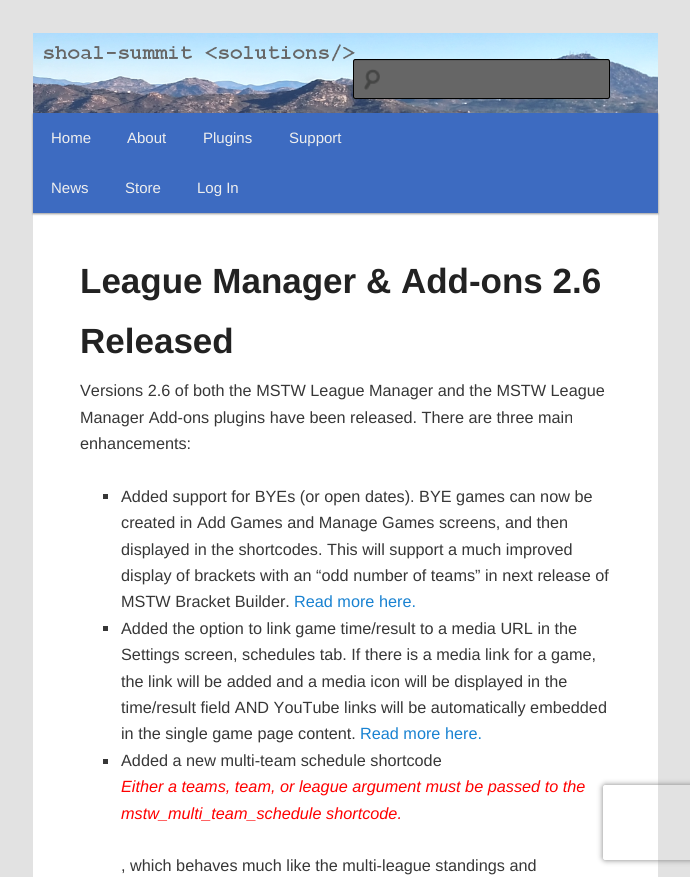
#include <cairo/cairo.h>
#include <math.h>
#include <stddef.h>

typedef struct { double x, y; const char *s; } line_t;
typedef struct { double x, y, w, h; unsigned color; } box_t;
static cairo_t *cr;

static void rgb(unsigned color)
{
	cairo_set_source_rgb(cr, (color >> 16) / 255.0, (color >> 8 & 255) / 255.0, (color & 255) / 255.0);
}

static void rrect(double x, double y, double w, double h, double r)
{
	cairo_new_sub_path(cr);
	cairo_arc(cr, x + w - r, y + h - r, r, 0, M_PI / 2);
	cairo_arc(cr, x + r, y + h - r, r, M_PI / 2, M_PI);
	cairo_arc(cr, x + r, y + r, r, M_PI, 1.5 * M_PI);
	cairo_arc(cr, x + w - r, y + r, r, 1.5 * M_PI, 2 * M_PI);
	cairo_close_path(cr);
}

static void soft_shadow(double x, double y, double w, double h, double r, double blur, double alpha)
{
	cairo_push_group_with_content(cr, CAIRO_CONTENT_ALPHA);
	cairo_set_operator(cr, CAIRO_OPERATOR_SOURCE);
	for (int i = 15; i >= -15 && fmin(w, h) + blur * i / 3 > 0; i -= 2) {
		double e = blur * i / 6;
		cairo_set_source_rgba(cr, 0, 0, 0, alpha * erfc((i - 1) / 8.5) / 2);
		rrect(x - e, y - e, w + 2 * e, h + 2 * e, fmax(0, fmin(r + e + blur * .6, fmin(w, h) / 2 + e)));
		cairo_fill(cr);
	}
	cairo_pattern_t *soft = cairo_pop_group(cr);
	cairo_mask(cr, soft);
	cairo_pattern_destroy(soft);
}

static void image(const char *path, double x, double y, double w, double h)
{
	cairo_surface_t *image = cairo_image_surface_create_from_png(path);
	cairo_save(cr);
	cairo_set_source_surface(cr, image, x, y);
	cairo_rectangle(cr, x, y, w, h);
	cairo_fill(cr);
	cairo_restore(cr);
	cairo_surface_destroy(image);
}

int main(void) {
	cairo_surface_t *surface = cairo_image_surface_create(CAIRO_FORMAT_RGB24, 690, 877);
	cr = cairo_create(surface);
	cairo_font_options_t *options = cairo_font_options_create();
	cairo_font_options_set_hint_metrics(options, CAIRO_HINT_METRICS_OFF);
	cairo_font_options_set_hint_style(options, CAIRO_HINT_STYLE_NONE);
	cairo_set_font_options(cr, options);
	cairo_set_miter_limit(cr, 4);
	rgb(0xe2e2e2);
	cairo_paint(cr);
	rgb(0xffffff);
	cairo_rectangle(cr, 33, 213, 625, 664);
	cairo_fill(cr);
	rgb(0x000000);
	soft_shadow(33, 114, 625, 100, 0, 1, 0.4);
	image("img/1.png", 33, 33, 625, 80);
	rgb(0x666666);
	rrect(353, 59, 257, 40, 2.5);
	cairo_fill(cr);
	image("img/2.png", 364, 69, 16, 21);
	rgb(0x5c5c5c);
	cairo_new_path(cr);
	cairo_move_to(cr, 355, 61);
	cairo_line_to(cr, 608, 61);
	cairo_line_to(cr, 609, 62);
	cairo_line_to(cr, 609, 60);
	cairo_line_to(cr, 355, 60);
	cairo_curve_to(cr, 354, 60, 354, 61, 354, 62);
	cairo_close_path(cr);
	cairo_fill(cr);
	rrect(353.5, 59.5, 256, 39, 2);
	rgb(0x000000);
	cairo_set_line_width(cr, 1);
	cairo_stroke(cr);
	{
		static const box_t items[] = {
			{33, 113, 625, 100, 0x3d6bc1},
			{103, 494, 5, 5, 0x373737},
			{103, 626, 5, 5, 0x373737},
			{103, 759, 5, 5, 0x373737},
		};
		for (size_t i = 0; i < sizeof items / sizeof *items; i++) {
			rgb(items[i].color);
			cairo_rectangle(cr, items[i].x, items[i].y, items[i].w, items[i].h);
			cairo_fill(cr);
		}
	}
	cairo_save(cr);
	cairo_set_fill_rule(cr, CAIRO_FILL_RULE_EVEN_ODD);
	cairo_new_path(cr);
	cairo_move_to(cr, 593, 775);
	cairo_line_to(cr, 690, 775);
	cairo_line_to(cr, 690, 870);
	cairo_line_to(cr, 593, 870);
	cairo_close_path(cr);
	cairo_move_to(cr, 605.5, 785);
	cairo_line_to(cr, 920.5, 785);
	cairo_curve_to(cr, 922, 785, 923, 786, 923, 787.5);
	cairo_line_to(cr, 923, 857.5);
	cairo_curve_to(cr, 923, 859, 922, 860, 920.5, 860);
	cairo_line_to(cr, 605.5, 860);
	cairo_curve_to(cr, 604, 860, 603, 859, 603, 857.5);
	cairo_line_to(cr, 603, 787.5);
	cairo_curve_to(cr, 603, 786, 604, 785, 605.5, 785);
	cairo_close_path(cr);
	cairo_clip(cr);
	rgb(0x808080);
	soft_shadow(603, 785, 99, 75, 2.5, 3, 1);
	cairo_restore(cr);
	cairo_select_font_face(cr, "Liberation Sans", CAIRO_FONT_SLANT_NORMAL, CAIRO_FONT_WEIGHT_NORMAL);
	cairo_set_font_size(cr, 15);
	rgb(0xeeeeee);
	{
		static const line_t items[] = {
			{51, 143, "Home"},
			{127, 143, "About"},
			{203, 143, "Plugins"},
			{289, 143, "Support"},
			{51, 193, "News"},
			{125, 193, "Store"},
			{197, 193, "Log In"},
		};
		for (size_t i = 0; i < sizeof items / sizeof *items; i++) {
			cairo_move_to(cr, items[i].x, items[i].y);
			cairo_show_text(cr, items[i].s);
		}
	}
	cairo_select_font_face(cr, "Liberation Sans", CAIRO_FONT_SLANT_NORMAL, CAIRO_FONT_WEIGHT_BOLD);
	cairo_set_font_size(cr, 35);
	rgb(0x222222);
	cairo_move_to(cr, 80, 293);
	cairo_show_text(cr, "League Manager & Add-ons 2.6");
	cairo_move_to(cr, 80, 353);
	cairo_show_text(cr, "Released");
	cairo_select_font_face(cr, "Liberation Sans", CAIRO_FONT_SLANT_NORMAL, CAIRO_FONT_WEIGHT_NORMAL);
	cairo_set_font_size(cr, 16.25);
	rgb(0x373737);
	{
		static const line_t items[] = {
			{80, 396, "Versions 2.6 of both the MSTW League Manager and the MSTW League"},
			{80, 423, "Manager Add-ons plugins have been released. There are three main"},
			{80, 449, "enhancements:"},
			{121, 502, "Added support for BYEs (or open dates). BYE games can now be"},
			{121, 528, "created in Add Games and Manage Games screens, and then"},
			{121, 555, "displayed in the shortcodes. This will support a much improved"},
			{121, 581, "display of brackets with an “odd number of teams” in next release of"},
			{121, 607, "MSTW Bracket Builder."},
		};
		for (size_t i = 0; i < sizeof items / sizeof *items; i++) {
			cairo_move_to(cr, items[i].x, items[i].y);
			cairo_show_text(cr, items[i].s);
		}
	}
	rgb(0x1982d1);
	cairo_move_to(cr, 294, 607);
	cairo_show_text(cr, "Read more here.");
	rgb(0x373737);
	{
		static const line_t items[] = {
			{121, 634, "Added the option to link game time/result to a media URL in the"},
			{121, 660, "Settings screen, schedules tab. If there is a media link for a game,"},
			{121, 687, "the link will be added and a media icon will be displayed in the"},
			{121, 713, "time/result field AND YouTube links will be automatically embedded"},
			{121, 739, "in the single game page content."},
		};
		for (size_t i = 0; i < sizeof items / sizeof *items; i++) {
			cairo_move_to(cr, items[i].x, items[i].y);
			cairo_show_text(cr, items[i].s);
		}
	}
	rgb(0x1982d1);
	cairo_move_to(cr, 360, 739);
	cairo_show_text(cr, "Read more here.");
	rgb(0x373737);
	cairo_move_to(cr, 121, 766);
	cairo_show_text(cr, "Added a new multi-team schedule shortcode");
	cairo_select_font_face(cr, "Liberation Sans", CAIRO_FONT_SLANT_ITALIC, CAIRO_FONT_WEIGHT_NORMAL);
	rgb(0xff0000);
	cairo_move_to(cr, 121, 792);
	cairo_show_text(cr, "Either a teams, team, or league argument must be passed to the");
	cairo_move_to(cr, 121, 819);
	cairo_show_text(cr, "mstw_multi_team_schedule shortcode.");
	cairo_select_font_face(cr, "Liberation Sans", CAIRO_FONT_SLANT_NORMAL, CAIRO_FONT_WEIGHT_NORMAL);
	rgb(0x373737);
	cairo_move_to(cr, 121, 871);
	cairo_show_text(cr, ", which behaves much like the multi-league standings and");
	cairo_surface_write_to_png(surface, "page.png");
	cairo_font_options_destroy(options);
	cairo_destroy(cr);
	cairo_surface_destroy(surface);
	return 0;
}
